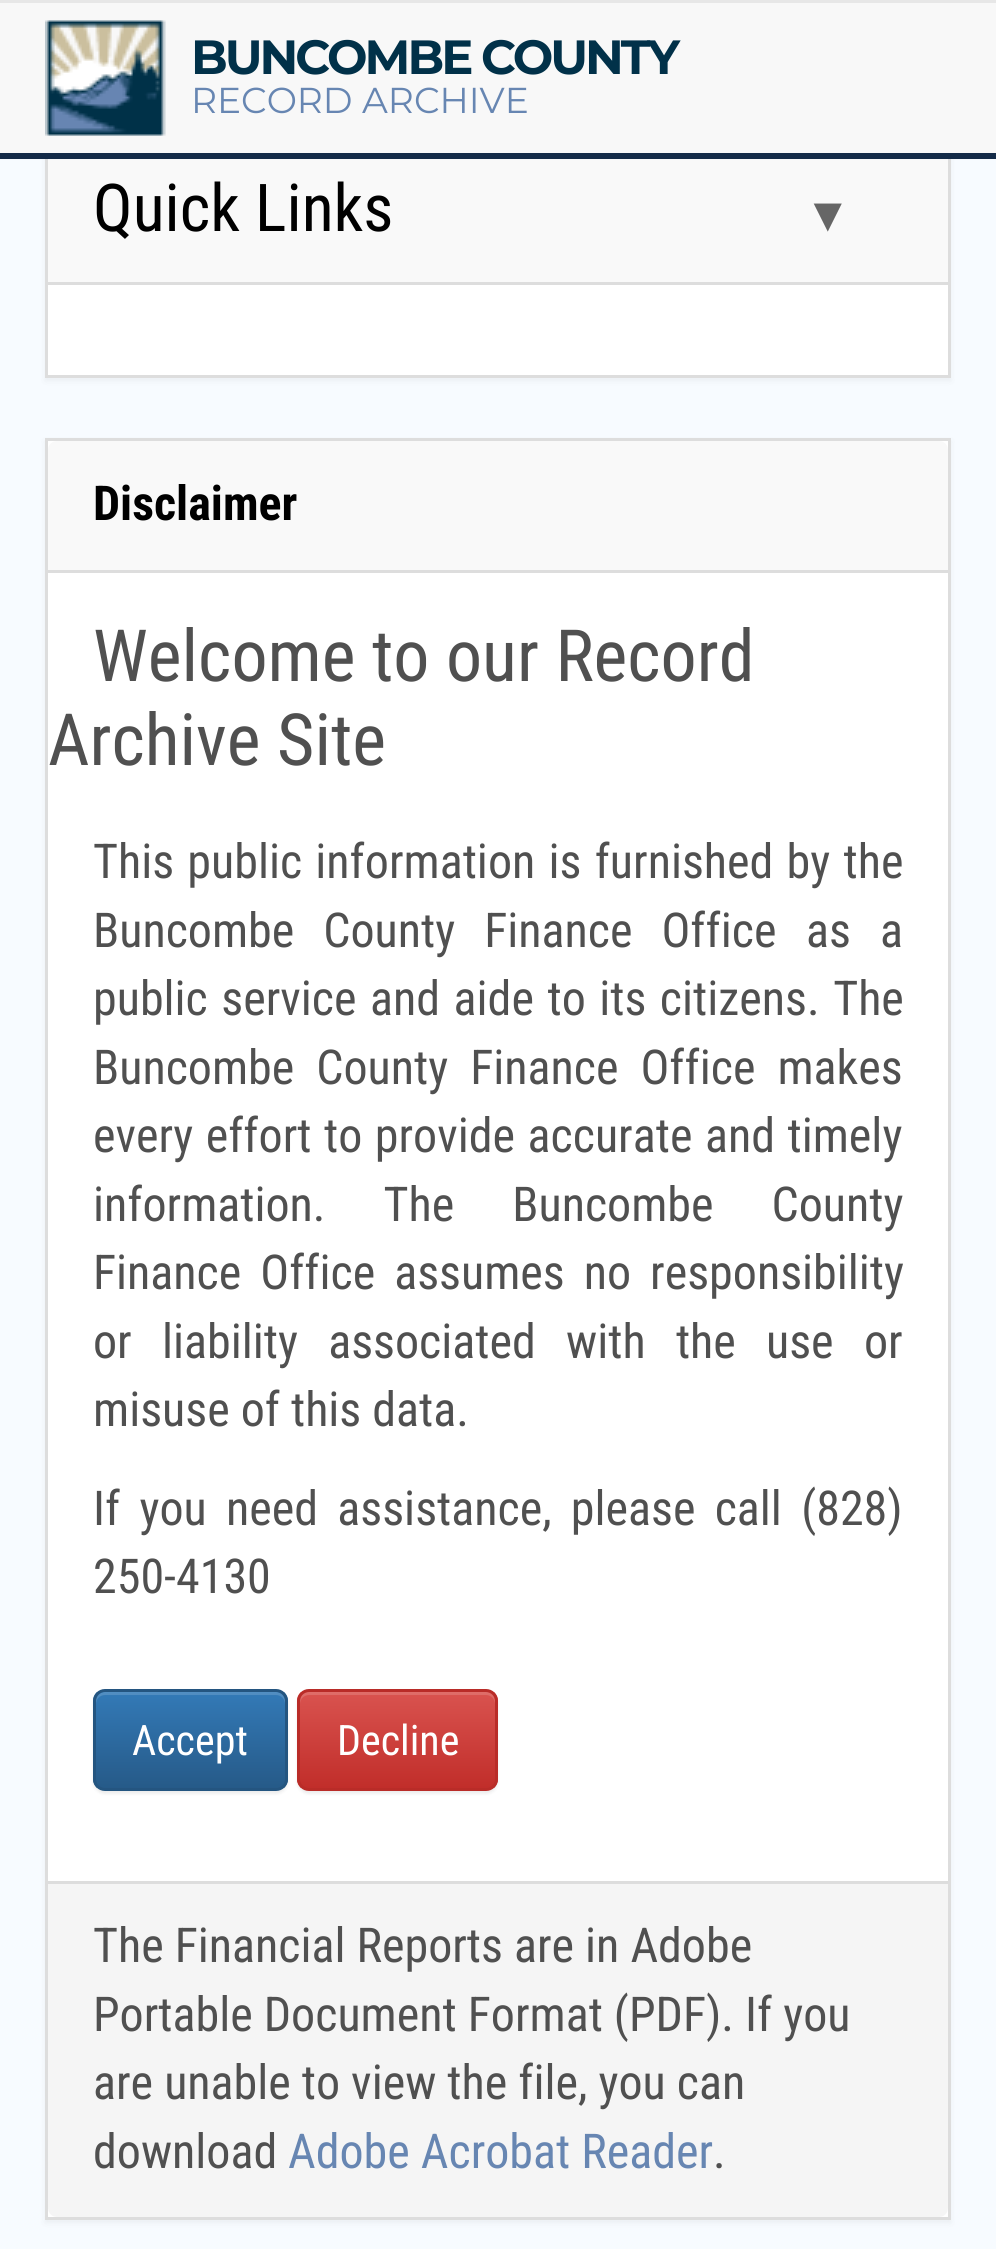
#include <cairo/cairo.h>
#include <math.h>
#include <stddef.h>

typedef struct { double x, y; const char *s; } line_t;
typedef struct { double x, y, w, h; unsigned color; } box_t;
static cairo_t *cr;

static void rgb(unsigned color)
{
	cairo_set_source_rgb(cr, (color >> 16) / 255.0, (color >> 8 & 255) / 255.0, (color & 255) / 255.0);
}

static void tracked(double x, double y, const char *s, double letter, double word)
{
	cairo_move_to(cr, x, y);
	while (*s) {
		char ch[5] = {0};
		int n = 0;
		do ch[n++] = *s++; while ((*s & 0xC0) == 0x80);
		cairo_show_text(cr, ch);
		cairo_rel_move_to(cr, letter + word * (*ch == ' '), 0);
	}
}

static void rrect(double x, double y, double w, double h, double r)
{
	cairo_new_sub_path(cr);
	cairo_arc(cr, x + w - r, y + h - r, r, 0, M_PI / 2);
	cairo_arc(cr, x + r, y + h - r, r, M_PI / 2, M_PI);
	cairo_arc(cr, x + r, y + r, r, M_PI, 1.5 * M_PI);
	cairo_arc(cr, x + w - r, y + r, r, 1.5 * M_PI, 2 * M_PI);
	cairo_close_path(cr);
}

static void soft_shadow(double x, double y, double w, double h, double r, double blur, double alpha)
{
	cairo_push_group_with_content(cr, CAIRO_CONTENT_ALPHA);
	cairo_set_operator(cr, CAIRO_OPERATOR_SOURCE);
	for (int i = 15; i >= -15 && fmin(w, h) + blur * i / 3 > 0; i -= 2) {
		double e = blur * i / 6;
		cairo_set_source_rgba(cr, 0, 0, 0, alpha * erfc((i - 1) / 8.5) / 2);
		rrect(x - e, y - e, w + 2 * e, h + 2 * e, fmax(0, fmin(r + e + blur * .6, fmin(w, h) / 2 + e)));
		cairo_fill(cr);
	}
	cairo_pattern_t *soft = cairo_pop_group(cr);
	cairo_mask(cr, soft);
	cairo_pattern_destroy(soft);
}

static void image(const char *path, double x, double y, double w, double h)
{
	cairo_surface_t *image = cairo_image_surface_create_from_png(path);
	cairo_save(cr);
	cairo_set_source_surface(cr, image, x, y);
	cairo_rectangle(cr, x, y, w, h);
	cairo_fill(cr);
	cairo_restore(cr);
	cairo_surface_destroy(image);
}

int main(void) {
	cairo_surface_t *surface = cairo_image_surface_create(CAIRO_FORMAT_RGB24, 996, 2249);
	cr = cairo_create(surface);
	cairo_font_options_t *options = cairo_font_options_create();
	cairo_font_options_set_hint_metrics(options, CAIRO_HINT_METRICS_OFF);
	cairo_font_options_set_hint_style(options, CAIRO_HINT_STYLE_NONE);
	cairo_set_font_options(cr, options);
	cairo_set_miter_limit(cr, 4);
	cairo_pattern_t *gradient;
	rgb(0xf7fbff);
	cairo_paint(cr);
	rgb(0xe7e7e7);
	cairo_rectangle(cr, 0, 0, 996, 3);
	cairo_fill(cr);
	rgb(0x000000);
	soft_shadow(45, 105, 906, 276, 0, 3, 0.05);
	rgb(0xffffff);
	cairo_rectangle(cr, 48, 285, 900, 90);
	cairo_fill(cr);
	cairo_rectangle(cr, 46.5, 103.5, 903, 273);
	rgb(0xdddddd);
	cairo_set_line_width(cr, 3);
	cairo_stroke(cr);
	rgb(0xf8f8f8);
	cairo_rectangle(cr, 0, 3, 996, 150);
	cairo_fill(cr);
	image("img/1.png", 45, 20, 121, 116);
	{
		static const box_t items[] = {
			{0, 153, 996, 6, 0x142b48},
			{48, 159, 900, 123, 0xf9f9f9},
			{48, 282, 900, 3, 0xdddddd},
		};
		for (size_t i = 0; i < sizeof items / sizeof *items; i++) {
			rgb(items[i].color);
			cairo_rectangle(cr, items[i].x, items[i].y, items[i].w, items[i].h);
			cairo_fill(cr);
		}
	}
	rgb(0x000000);
	soft_shadow(45, 441, 906, 1782, 0, 3, 0.05);
	rgb(0xffffff);
	cairo_rectangle(cr, 46.5, 439.5, 903, 1779);
	cairo_fill_preserve(cr);
	rgb(0xdddddd);
	cairo_stroke(cr);
	rgb(0xf9f9f9);
	cairo_new_path(cr);
	cairo_move_to(cr, 57, 441);
	cairo_line_to(cr, 939, 441);
	cairo_curve_to(cr, 944, 441, 948, 445, 948, 450);
	cairo_line_to(cr, 948, 573);
	cairo_line_to(cr, 48, 573);
	cairo_line_to(cr, 48, 450);
	cairo_curve_to(cr, 48, 445, 52, 441, 57, 441);
	cairo_close_path(cr);
	cairo_fill(cr);
	rgb(0xdddddd);
	cairo_rectangle(cr, 48, 570, 900, 3);
	cairo_fill(cr);
	rgb(0x000000);
	soft_shadow(93, 1692, 195, 102, 12, 1.5, 0.07);
	cairo_save(cr);
	rrect(93, 1689, 195, 102, 12);
	cairo_clip(cr);
	gradient = cairo_pattern_create_linear(191, 1692, 191, 1788);
	cairo_pattern_add_color_stop_rgba(gradient, 0, 0.2, 0.478, 0.718, 1);
	cairo_pattern_add_color_stop_rgba(gradient, 1, 0.149, 0.353, 0.533, 1);
	cairo_set_source(cr, gradient);
	cairo_pattern_destroy(gradient);
	cairo_rectangle(cr, 93, 1692, 195, 96);
	cairo_fill(cr);
	cairo_restore(cr);
	cairo_set_source_rgba(cr, 1, 1, 1, 0.15);
	cairo_new_path(cr);
	cairo_move_to(cr, 105, 1695);
	cairo_line_to(cr, 276, 1695);
	cairo_curve_to(cr, 281, 1695, 285, 1699, 285, 1704);
	cairo_line_to(cr, 285, 1701);
	cairo_curve_to(cr, 285, 1696, 281, 1692, 276, 1692);
	cairo_line_to(cr, 105, 1692);
	cairo_curve_to(cr, 100, 1692, 96, 1696, 96, 1701);
	cairo_line_to(cr, 96, 1704);
	cairo_curve_to(cr, 96, 1699, 100, 1695, 105, 1695);
	cairo_close_path(cr);
	cairo_fill(cr);
	rrect(94.5, 1690.5, 192, 99, 10.5);
	rgb(0x245580);
	cairo_stroke(cr);
	rgb(0x000000);
	soft_shadow(297, 1692, 201, 102, 12, 1.5, 0.07);
	cairo_save(cr);
	rrect(297, 1689, 201, 102, 12);
	cairo_clip(cr);
	gradient = cairo_pattern_create_linear(398, 1692, 398, 1788);
	cairo_pattern_add_color_stop_rgba(gradient, 0, 0.851, 0.325, 0.31, 1);
	cairo_pattern_add_color_stop_rgba(gradient, 1, 0.757, 0.18, 0.165, 1);
	cairo_set_source(cr, gradient);
	cairo_pattern_destroy(gradient);
	cairo_rectangle(cr, 297, 1692, 201, 96);
	cairo_fill(cr);
	cairo_restore(cr);
	cairo_set_source_rgba(cr, 1, 1, 1, 0.15);
	cairo_new_path(cr);
	cairo_move_to(cr, 309, 1695);
	cairo_line_to(cr, 486, 1695);
	cairo_curve_to(cr, 491, 1695, 495, 1699, 495, 1704);
	cairo_line_to(cr, 495, 1701);
	cairo_curve_to(cr, 495, 1696, 491, 1692, 486, 1692);
	cairo_line_to(cr, 309, 1692);
	cairo_curve_to(cr, 304, 1692, 300, 1696, 300, 1701);
	cairo_line_to(cr, 300, 1704);
	cairo_curve_to(cr, 300, 1699, 304, 1695, 309, 1695);
	cairo_close_path(cr);
	cairo_fill(cr);
	rrect(298.5, 1690.5, 198, 99, 10.5);
	rgb(0xb92c28);
	cairo_stroke(cr);
	rgb(0xf5f5f5);
	cairo_new_path(cr);
	cairo_move_to(cr, 48, 1881);
	cairo_line_to(cr, 948, 1881);
	cairo_line_to(cr, 948, 2208);
	cairo_curve_to(cr, 948, 2213, 944, 2217, 939, 2217);
	cairo_line_to(cr, 57, 2217);
	cairo_curve_to(cr, 52, 2217, 48, 2213, 48, 2208);
	cairo_close_path(cr);
	cairo_fill(cr);
	rgb(0xdddddd);
	cairo_rectangle(cr, 48, 1881, 900, 3);
	cairo_fill(cr);
	cairo_select_font_face(cr, "Montserrat", CAIRO_FONT_SLANT_NORMAL, CAIRO_FONT_WEIGHT_BOLD);
	cairo_set_font_size(cr, 48);
	rgb(0x013149);
	tracked(191, 74, "BUNCOMBE COUNTY", -3, 0);
	cairo_select_font_face(cr, "Montserrat", CAIRO_FONT_SLANT_NORMAL, CAIRO_FONT_WEIGHT_NORMAL);
	cairo_set_font_size(cr, 36);
	rgb(0x6786b2);
	cairo_move_to(cr, 191, 113);
	cairo_show_text(cr, "RECORD ARCHIVE");
	cairo_select_font_face(cr, "Roboto Condensed", CAIRO_FONT_SLANT_NORMAL, CAIRO_FONT_WEIGHT_NORMAL);
	cairo_set_font_size(cr, 66);
	rgb(0x000000);
	cairo_move_to(cr, 93, 231);
	cairo_show_text(cr, "Quick Links");
	cairo_select_font_face(cr, "Liberation Sans", CAIRO_FONT_SLANT_ITALIC, CAIRO_FONT_WEIGHT_BOLD);
	cairo_set_font_size(cr, 48);
	rgb(0x666666);
	cairo_move_to(cr, 804, 231);
	cairo_show_text(cr, "▼");
	cairo_select_font_face(cr, "Roboto Condensed", CAIRO_FONT_SLANT_NORMAL, CAIRO_FONT_WEIGHT_BOLD);
	rgb(0x000000);
	cairo_move_to(cr, 93, 520);
	cairo_show_text(cr, "Disclaimer");
	cairo_select_font_face(cr, "Roboto Condensed", CAIRO_FONT_SLANT_NORMAL, CAIRO_FONT_WEIGHT_NORMAL);
	cairo_set_font_size(cr, 72);
	rgb(0x505050);
	cairo_move_to(cr, 93, 681);
	cairo_show_text(cr, "Welcome to our Record");
	cairo_move_to(cr, 48, 765);
	cairo_show_text(cr, "Archive Site");
	cairo_set_font_size(cr, 48);
	tracked(93, 878, "This public information is furnished by the", 0, 2.25);
	tracked(93, 947, "Buncombe County Finance Office", 0, 18);
	tracked(806, 947, "as a", 0, 18);
	tracked(93, 1015, "public service and aide to its citizens. The", 0, 2.5);
	tracked(93, 1084, "Buncombe County Finance Office makes", 0, 11);
	tracked(93, 1152, "every effort to provide accurate and timely", 0, 1.5);
	tracked(93, 1221, "information. The Buncombe County", 0, 47);
	tracked(93, 1289, "Finance Office assumes no responsibility", 0, 8);
	tracked(93, 1358, "or liability associated with the use or", 0, 19.25);
	cairo_move_to(cr, 93, 1426);
	cairo_show_text(cr, "misuse of this data.");
	tracked(93, 1525, "If you need assistance, please call (828)", 0, 8.25);
	cairo_move_to(cr, 93, 1593);
	cairo_show_text(cr, "250-4130");
	cairo_set_font_size(cr, 42);
	rgb(0xffffff);
	cairo_move_to(cr, 132, 1755);
	cairo_show_text(cr, "Accept");
	cairo_move_to(cr, 337, 1755);
	cairo_show_text(cr, "Decline");
	cairo_set_font_size(cr, 48);
	rgb(0x505050);
	{
		static const line_t items[] = {
			{93, 1962, "The Financial Reports are in Adobe"},
			{93, 2031, "Portable Document Format (PDF). If you"},
			{93, 2099, "are unable to view the file, you can"},
			{93, 2168, "download"},
		};
		for (size_t i = 0; i < sizeof items / sizeof *items; i++) {
			cairo_move_to(cr, items[i].x, items[i].y);
			cairo_show_text(cr, items[i].s);
		}
	}
	rgb(0x6786b2);
	cairo_move_to(cr, 288, 2168);
	cairo_show_text(cr, "Adobe Acrobat Reader");
	rgb(0x505050);
	cairo_move_to(cr, 713, 2168);
	cairo_show_text(cr, ".");
	cairo_surface_write_to_png(surface, "page.png");
	cairo_font_options_destroy(options);
	cairo_destroy(cr);
	cairo_surface_destroy(surface);
	return 0;
}
